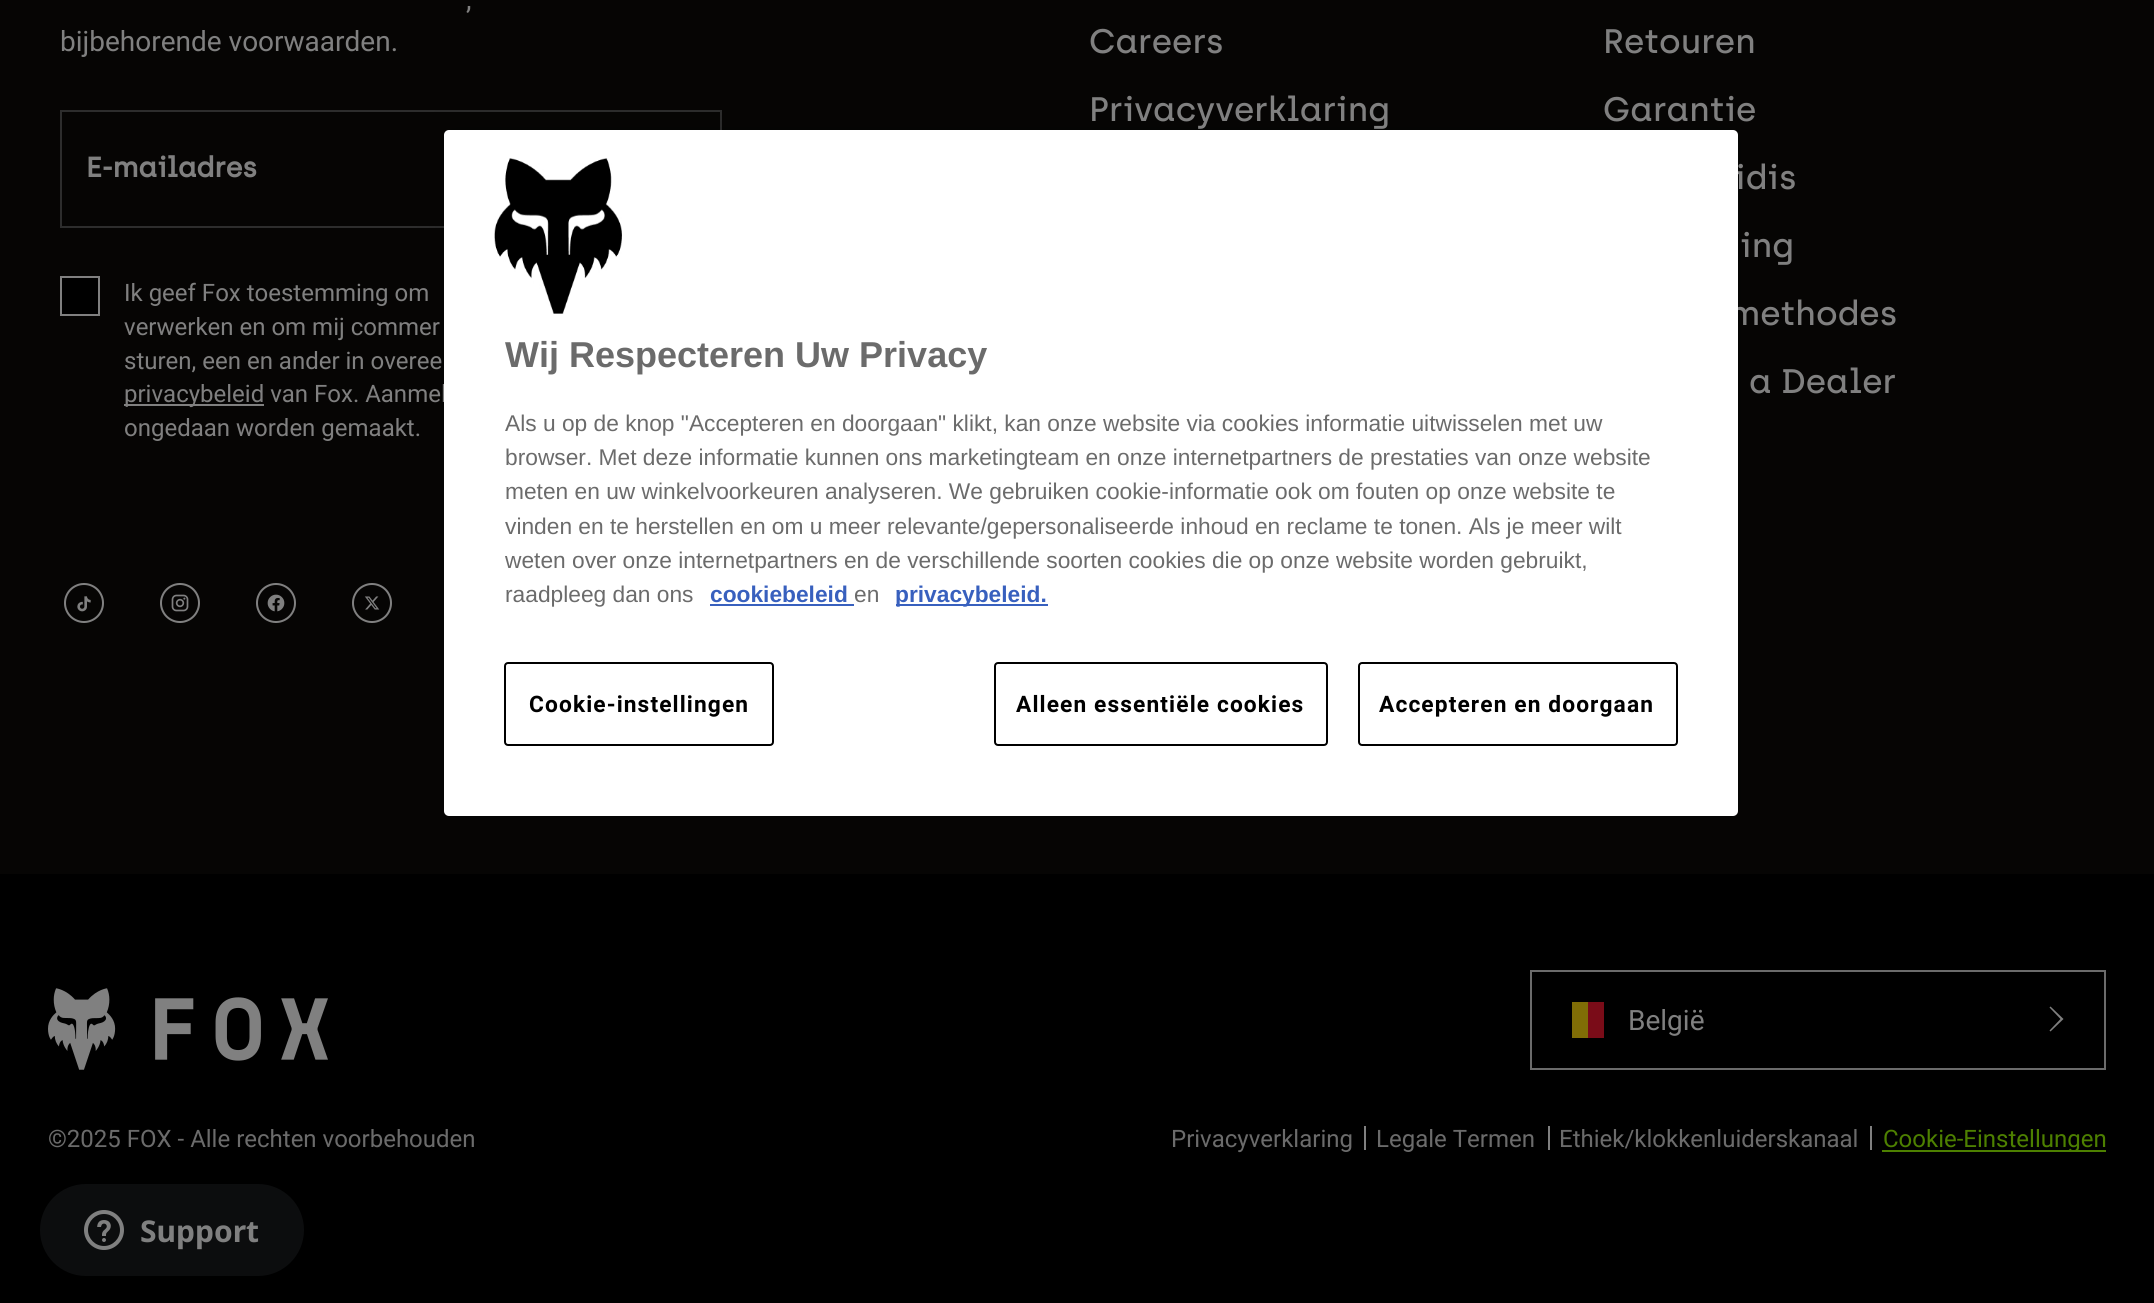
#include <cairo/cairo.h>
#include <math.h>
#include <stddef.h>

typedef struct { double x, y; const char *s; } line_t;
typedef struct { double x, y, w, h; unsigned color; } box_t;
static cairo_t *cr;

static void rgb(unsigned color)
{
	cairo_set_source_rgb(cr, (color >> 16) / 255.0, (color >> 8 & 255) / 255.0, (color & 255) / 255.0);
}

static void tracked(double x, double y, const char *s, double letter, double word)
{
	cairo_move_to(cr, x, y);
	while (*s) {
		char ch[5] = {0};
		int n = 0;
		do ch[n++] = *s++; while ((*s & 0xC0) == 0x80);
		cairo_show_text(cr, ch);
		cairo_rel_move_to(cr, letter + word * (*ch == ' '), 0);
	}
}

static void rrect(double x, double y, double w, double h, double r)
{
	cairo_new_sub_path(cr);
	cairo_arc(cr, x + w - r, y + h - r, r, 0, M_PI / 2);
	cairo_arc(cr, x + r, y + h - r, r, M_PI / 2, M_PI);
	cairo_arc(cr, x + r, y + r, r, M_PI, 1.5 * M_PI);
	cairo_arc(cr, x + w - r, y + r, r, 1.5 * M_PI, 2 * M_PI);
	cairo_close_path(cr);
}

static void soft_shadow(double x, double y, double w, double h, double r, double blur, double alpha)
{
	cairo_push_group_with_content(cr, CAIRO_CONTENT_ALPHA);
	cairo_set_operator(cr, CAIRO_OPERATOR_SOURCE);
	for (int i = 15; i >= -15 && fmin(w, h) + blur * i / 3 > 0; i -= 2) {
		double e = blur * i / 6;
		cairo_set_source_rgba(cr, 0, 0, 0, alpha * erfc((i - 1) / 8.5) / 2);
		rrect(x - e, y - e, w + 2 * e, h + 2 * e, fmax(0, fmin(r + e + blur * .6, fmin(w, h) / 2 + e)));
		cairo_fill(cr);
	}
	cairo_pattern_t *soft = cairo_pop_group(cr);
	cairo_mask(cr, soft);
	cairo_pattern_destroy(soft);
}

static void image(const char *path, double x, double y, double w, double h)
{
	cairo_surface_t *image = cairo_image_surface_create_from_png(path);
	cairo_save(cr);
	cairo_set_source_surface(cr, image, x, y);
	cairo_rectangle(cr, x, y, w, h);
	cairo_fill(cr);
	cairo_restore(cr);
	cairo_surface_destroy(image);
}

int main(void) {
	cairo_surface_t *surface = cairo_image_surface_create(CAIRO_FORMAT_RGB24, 2154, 1303);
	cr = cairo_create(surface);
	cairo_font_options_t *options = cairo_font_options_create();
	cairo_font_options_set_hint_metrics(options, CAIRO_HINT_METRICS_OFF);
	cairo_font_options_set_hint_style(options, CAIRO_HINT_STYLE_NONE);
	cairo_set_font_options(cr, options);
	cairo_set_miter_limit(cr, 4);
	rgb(0x060504);
	cairo_paint(cr);
	cairo_rectangle(cr, 61, 111, 660, 116);
	rgb(0x2d2d2d);
	cairo_stroke(cr);
	rgb(0x000000);
	cairo_rectangle(cr, 61, 277, 38, 38);
	cairo_fill_preserve(cr);
	rgb(0x808080);
	cairo_stroke(cr);
	cairo_rectangle(cr, 124, 404, 140, 2);
	cairo_fill(cr);
	image("img/1.png", 64, 583, 40, 40);
	image("img/2.png", 160, 583, 40, 40);
	image("img/3.png", 256, 583, 40, 40);
	image("img/4.png", 352, 583, 40, 40);
	rgb(0x000000);
	cairo_rectangle(cr, 0, 874, 2154, 429);
	cairo_fill(cr);
	image("img/5.png", 48, 988, 280, 82);
	cairo_rectangle(cr, 1531, 971, 574, 98);
	rgb(0x6b6b6b);
	cairo_stroke(cr);
	rgb(0x806d06);
	cairo_rectangle(cr, 1572, 1002, 16, 36);
	cairo_fill(cr);
	rgb(0x7a0c18);
	cairo_rectangle(cr, 1588, 1002, 16, 36);
	cairo_fill(cr);
	rgb(0x808080);
	cairo_new_path(cr);
	cairo_move_to(cr, 2060.5, 1019);
	cairo_line_to(cr, 2049.5, 1007.5);
	cairo_line_to(cr, 2050.5, 1006.5);
	cairo_line_to(cr, 2063.5, 1019);
	cairo_line_to(cr, 2050.5, 1031.5);
	cairo_line_to(cr, 2049.5, 1030.5);
	cairo_close_path(cr);
	cairo_fill(cr);
	{
		static const box_t items[] = {
			{1364, 1126, 2, 24, 0x808080},
			{1548, 1126, 2, 24, 0x808080},
			{1870, 1126, 2, 24, 0x808080},
			{1882, 1150, 224, 2, 0x4d8000},
		};
		for (size_t i = 0; i < sizeof items / sizeof *items; i++) {
			rgb(items[i].color);
			cairo_rectangle(cr, items[i].x, items[i].y, items[i].w, items[i].h);
			cairo_fill(cr);
		}
	}
	rgb(0x0c0d0e);
	rrect(40, 1184, 264, 92, 46);
	cairo_fill(cr);
	image("img/6.png", 84, 1210, 40, 40);
	rgb(0x000000);
	soft_shadow(444, 130, 1294, 686, 5, 18, 0.2);
	cairo_select_font_face(cr, "Roboto", CAIRO_FONT_SLANT_NORMAL, CAIRO_FONT_WEIGHT_NORMAL);
	cairo_set_font_size(cr, 28);
	rgb(0x808080);
	cairo_move_to(cr, 466, 9);
	cairo_show_text(cr, ",");
	cairo_move_to(cr, 60, 51);
	cairo_show_text(cr, "bijbehorende voorwaarden.");
	cairo_select_font_face(cr, "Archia", CAIRO_FONT_SLANT_NORMAL, CAIRO_FONT_WEIGHT_BOLD);
	cairo_move_to(cr, 86, 177);
	cairo_show_text(cr, "E-mailadres");
	cairo_select_font_face(cr, "Roboto", CAIRO_FONT_SLANT_NORMAL, CAIRO_FONT_WEIGHT_NORMAL);
	cairo_set_font_size(cr, 24);
	{
		static const line_t items[] = {
			{124, 301, "Ik geef Fox toestemming om"},
			{124, 335, "verwerken en om mij commer"},
			{124, 369, "sturen, een en ander in overee"},
			{124, 402, "privacybeleid van Fox. Aanmel"},
			{124, 436, "ongedaan worden gemaakt."},
		};
		for (size_t i = 0; i < sizeof items / sizeof *items; i++) {
			cairo_move_to(cr, items[i].x, items[i].y);
			cairo_show_text(cr, items[i].s);
		}
	}
	cairo_select_font_face(cr, "Archia Medium", CAIRO_FONT_SLANT_NORMAL, CAIRO_FONT_WEIGHT_NORMAL);
	cairo_set_font_size(cr, 34);
	{
		static const line_t items[] = {
			{1089, 53, "Careers"},
			{1089, 121, "Privacyverklaring"},
			{1603, 53, "Retouren"},
			{1603, 121, "Garantie"},
			{1734, 189, "idis"},
			{1740, 257, "ing"},
			{1729, 325, "methodes"},
			{1749, 393, "a Dealer"},
		};
		for (size_t i = 0; i < sizeof items / sizeof *items; i++) {
			cairo_move_to(cr, items[i].x, items[i].y);
			cairo_show_text(cr, items[i].s);
		}
	}
	cairo_select_font_face(cr, "Roboto", CAIRO_FONT_SLANT_NORMAL, CAIRO_FONT_WEIGHT_NORMAL);
	cairo_set_font_size(cr, 24);
	rgb(0x6b6b6b);
	cairo_move_to(cr, 48, 1147);
	cairo_show_text(cr, "©2025 FOX - Alle rechten voorbehouden");
	cairo_set_font_size(cr, 28);
	rgb(0x808080);
	cairo_move_to(cr, 1628, 1030);
	cairo_show_text(cr, "België");
	cairo_set_font_size(cr, 24);
	rgb(0x6b6b6b);
	{
		static const line_t items[] = {
			{1171, 1147, "Privacyverklaring"},
			{1376, 1147, "Legale Termen"},
			{1559, 1147, "Ethiek/klokkenluiderskanaal"},
		};
		for (size_t i = 0; i < sizeof items / sizeof *items; i++) {
			cairo_move_to(cr, items[i].x, items[i].y);
			cairo_show_text(cr, items[i].s);
		}
	}
	rgb(0x4d8000);
	cairo_move_to(cr, 1883, 1147);
	cairo_show_text(cr, "Cookie-Einstellungen");
	cairo_select_font_face(cr, "Noto Sans", CAIRO_FONT_SLANT_NORMAL, CAIRO_FONT_WEIGHT_BOLD);
	cairo_set_font_size(cr, 30);
	rgb(0x808080);
	cairo_move_to(cr, 140, 1242);
	cairo_show_text(cr, "Support");
	rgb(0xffffff);
	rrect(444, 130, 1294, 686, 5);
	cairo_fill(cr);
	image("img/7.png", 494, 158, 128, 156);
	cairo_select_font_face(cr, "Liberation Sans", CAIRO_FONT_SLANT_NORMAL, CAIRO_FONT_WEIGHT_BOLD);
	cairo_set_font_size(cr, 36);
	rgb(0x6b6b6b);
	cairo_move_to(cr, 505, 367);
	cairo_show_text(cr, "Wij Respecteren Uw Privacy");
	cairo_select_font_face(cr, "Liberation Sans", CAIRO_FONT_SLANT_NORMAL, CAIRO_FONT_WEIGHT_NORMAL);
	cairo_set_font_size(cr, 22.75);
	{
		static const line_t items[] = {
			{505, 431, "Als u op de knop \"Accepteren en doorgaan\" klikt, kan onze website via cookies informatie uitwisselen met uw"},
			{505, 465, "browser. Met deze informatie kunnen ons marketingteam en onze internetpartners de prestaties van onze website"},
			{505, 499, "meten en uw winkelvoorkeuren analyseren. We gebruiken cookie-informatie ook om fouten op onze website te"},
			{505, 534, "vinden en te herstellen en om u meer relevante/gepersonaliseerde inhoud en reclame te tonen. Als je meer wilt"},
			{505, 568, "weten over onze internetpartners en de verschillende soorten cookies die op onze website worden gebruikt,"},
			{505, 602, "raadpleeg dan ons"},
		};
		for (size_t i = 0; i < sizeof items / sizeof *items; i++) {
			cairo_move_to(cr, items[i].x, items[i].y);
			cairo_show_text(cr, items[i].s);
		}
	}
	cairo_select_font_face(cr, "Liberation Sans", CAIRO_FONT_SLANT_NORMAL, CAIRO_FONT_WEIGHT_BOLD);
	rgb(0x3860be);
	cairo_move_to(cr, 710, 602);
	cairo_show_text(cr, "cookiebeleid");
	cairo_rectangle(cr, 710, 604, 144, 2);
	cairo_fill(cr);
	cairo_select_font_face(cr, "Liberation Sans", CAIRO_FONT_SLANT_NORMAL, CAIRO_FONT_WEIGHT_NORMAL);
	rgb(0x6b6b6b);
	cairo_move_to(cr, 854, 602);
	cairo_show_text(cr, "en");
	rgb(0x3860be);
	cairo_rectangle(cr, 896, 604, 152, 2);
	cairo_fill(cr);
	cairo_select_font_face(cr, "Liberation Sans", CAIRO_FONT_SLANT_NORMAL, CAIRO_FONT_WEIGHT_BOLD);
	cairo_move_to(cr, 895, 602);
	cairo_show_text(cr, "privacybeleid.");
	rrect(505, 663, 268, 82, 3);
	rgb(0x000000);
	cairo_stroke(cr);
	cairo_select_font_face(cr, "Roboto", CAIRO_FONT_SLANT_NORMAL, CAIRO_FONT_WEIGHT_BOLD);
	tracked(529, 712, "Cookie-instellingen", 1.1, 0);
	rrect(995, 663, 332, 82, 3);
	cairo_stroke(cr);
	tracked(1016, 712, "Alleen essentiële cookies", 1.1, 0);
	rrect(1359, 663, 318, 82, 3);
	cairo_stroke(cr);
	tracked(1379, 712, "Accepteren en doorgaan", 1.1, 0);
	cairo_surface_write_to_png(surface, "page.png");
	cairo_font_options_destroy(options);
	cairo_destroy(cr);
	cairo_surface_destroy(surface);
	return 0;
}
